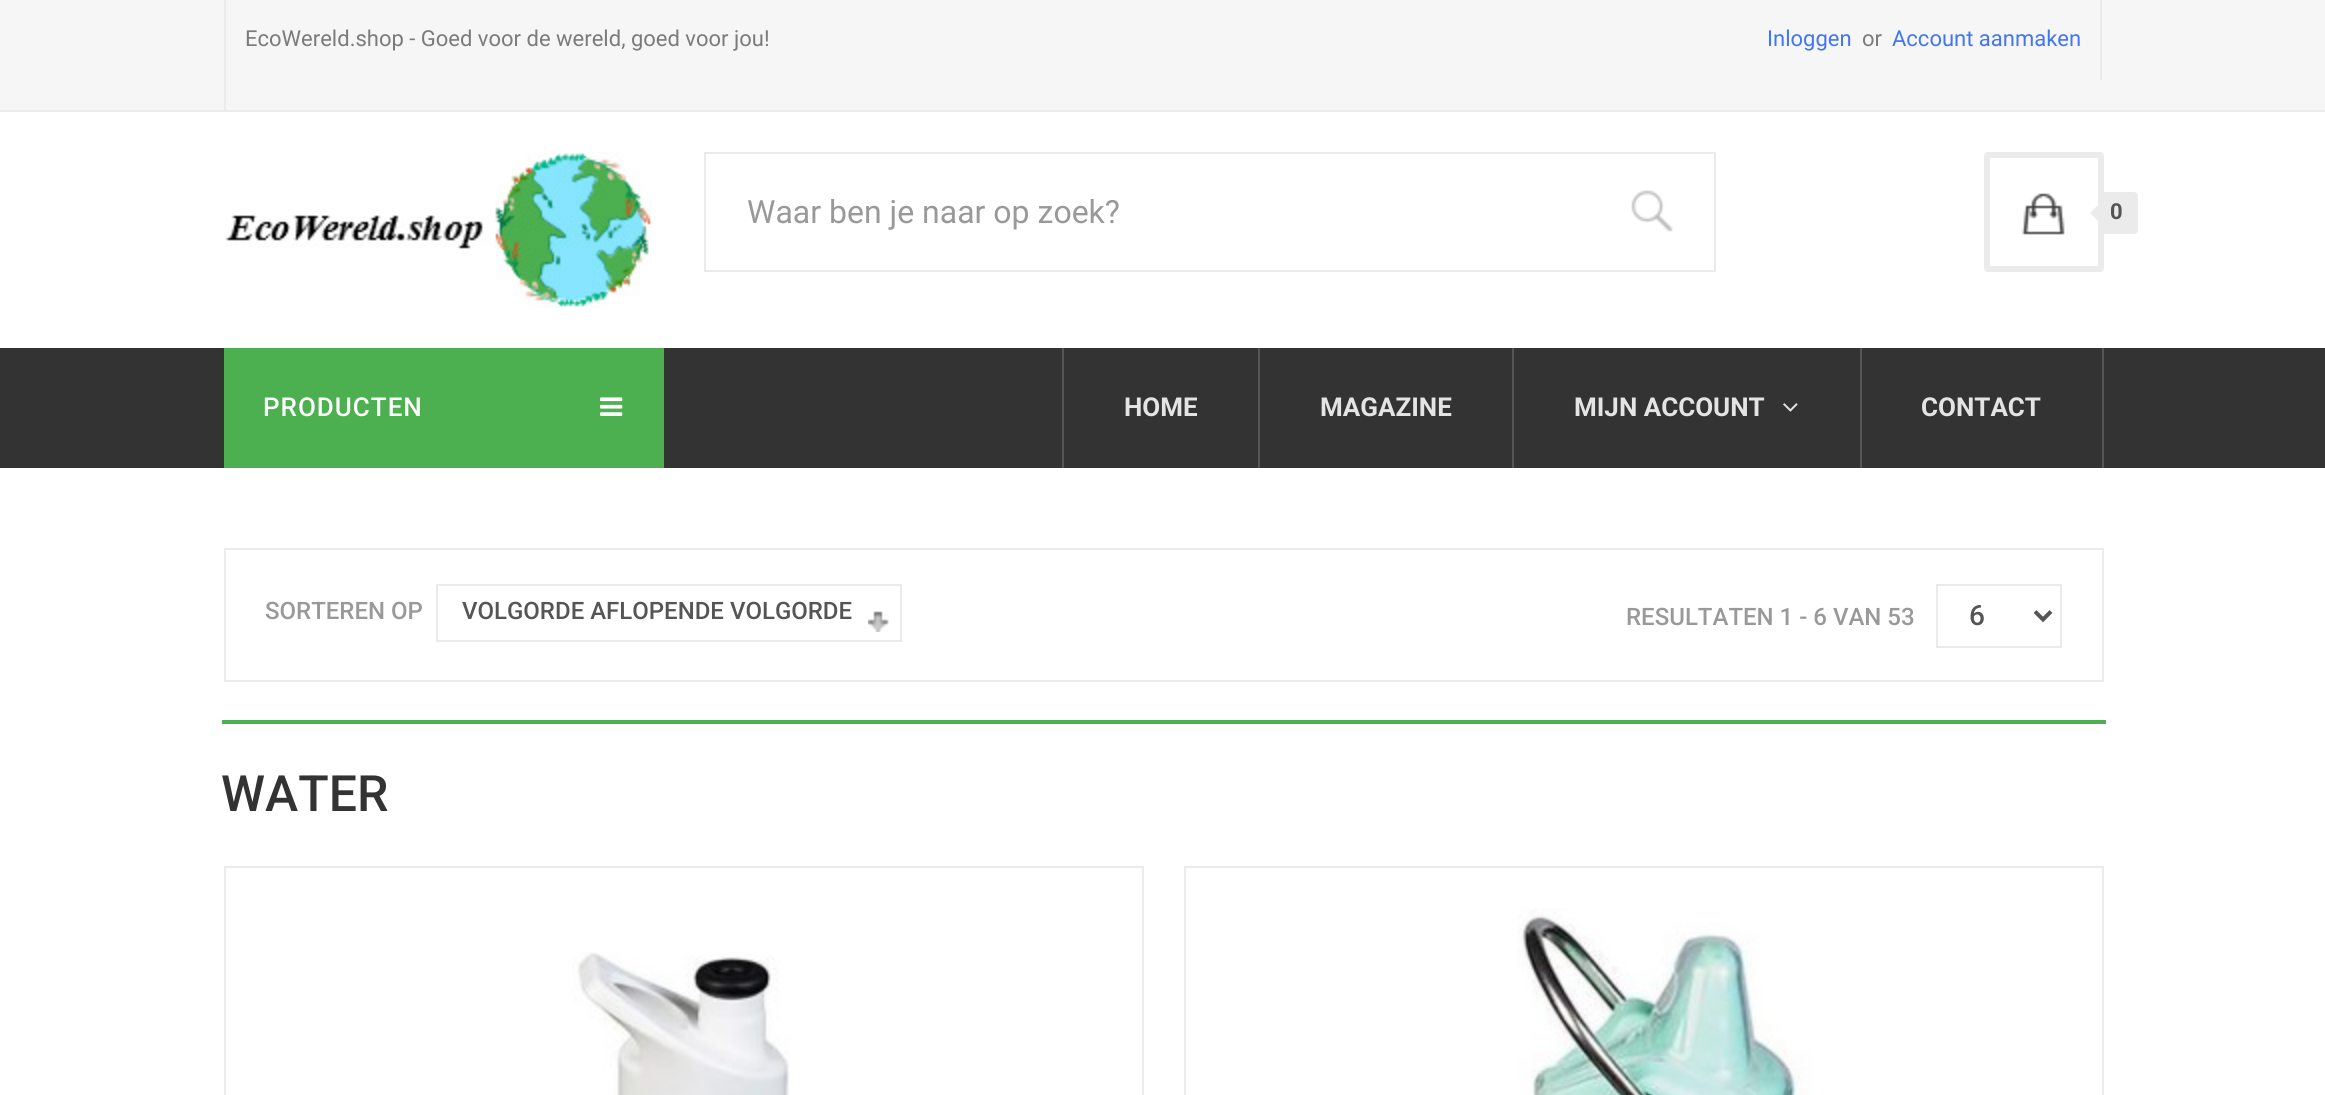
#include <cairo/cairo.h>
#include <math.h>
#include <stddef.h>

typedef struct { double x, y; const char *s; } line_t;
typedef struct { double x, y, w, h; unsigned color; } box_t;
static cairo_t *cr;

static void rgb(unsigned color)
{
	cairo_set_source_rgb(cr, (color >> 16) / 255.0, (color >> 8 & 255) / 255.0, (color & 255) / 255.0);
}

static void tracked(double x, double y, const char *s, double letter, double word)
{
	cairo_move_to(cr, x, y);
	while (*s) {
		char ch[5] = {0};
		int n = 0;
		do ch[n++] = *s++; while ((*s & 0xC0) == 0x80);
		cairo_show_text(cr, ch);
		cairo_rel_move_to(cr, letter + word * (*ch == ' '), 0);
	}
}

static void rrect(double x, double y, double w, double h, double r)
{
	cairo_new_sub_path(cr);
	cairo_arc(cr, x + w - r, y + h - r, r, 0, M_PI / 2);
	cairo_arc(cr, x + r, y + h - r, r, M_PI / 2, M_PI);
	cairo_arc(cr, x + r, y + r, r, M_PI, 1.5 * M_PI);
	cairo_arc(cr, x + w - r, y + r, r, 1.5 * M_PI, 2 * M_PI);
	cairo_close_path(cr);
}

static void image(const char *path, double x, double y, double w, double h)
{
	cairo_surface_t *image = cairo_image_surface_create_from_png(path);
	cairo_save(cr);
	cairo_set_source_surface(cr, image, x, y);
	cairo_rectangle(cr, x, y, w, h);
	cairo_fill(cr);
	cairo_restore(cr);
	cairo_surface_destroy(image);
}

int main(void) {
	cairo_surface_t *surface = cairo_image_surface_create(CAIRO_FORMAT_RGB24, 2325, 1095);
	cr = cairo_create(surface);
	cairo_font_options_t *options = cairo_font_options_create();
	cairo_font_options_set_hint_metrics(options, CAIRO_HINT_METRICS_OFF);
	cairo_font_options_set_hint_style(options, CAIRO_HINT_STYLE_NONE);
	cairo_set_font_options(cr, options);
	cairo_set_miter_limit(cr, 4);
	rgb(0xffffff);
	cairo_paint(cr);
	{
		static const box_t items[] = {
			{0, 0, 2325, 110, 0xf6f6f6},
			{0, 110, 2325, 2, 0xebebeb},
			{224, 0, 2, 110, 0xebebeb},
			{2100, 0, 2, 80, 0xebebeb},
		};
		for (size_t i = 0; i < sizeof items / sizeof *items; i++) {
			rgb(items[i].color);
			cairo_rectangle(cr, items[i].x, items[i].y, items[i].w, items[i].h);
			cairo_fill(cr);
		}
	}
	image("img/1.png", 225, 152, 427, 156);
	cairo_rectangle(cr, 705, 153, 1010, 118);
	cairo_stroke(cr);
	image("img/2.png", 1631, 190, 42, 42);
	image("img/3.png", 2021, 193, 44, 42);
	rrect(1987, 155, 114, 114, 1);
	cairo_set_line_width(cr, 6);
	cairo_stroke(cr);
	cairo_new_path(cr);
	cairo_move_to(cr, 2098, 192);
	cairo_line_to(cr, 2134, 192);
	cairo_curve_to(cr, 2136, 192, 2138, 194, 2138, 196);
	cairo_line_to(cr, 2138, 230);
	cairo_curve_to(cr, 2138, 232, 2136, 234, 2134, 234);
	cairo_line_to(cr, 2098, 234);
	cairo_close_path(cr);
	cairo_fill(cr);
	cairo_new_path(cr);
	cairo_move_to(cr, 2098, 205);
	cairo_line_to(cr, 2098, 221);
	cairo_line_to(cr, 2090, 213);
	cairo_close_path(cr);
	cairo_fill(cr);
	rgb(0x333333);
	cairo_rectangle(cr, 0, 348, 2325, 120);
	cairo_fill(cr);
	rgb(0x4caf50);
	cairo_rectangle(cr, 224, 348, 440, 120);
	cairo_fill(cr);
	image("img/4.png", 600, 397, 23, 19);
	{
		static const box_t items[] = {
			{2102, 348, 2, 120, 0x555555},
			{1062, 348, 2, 120, 0x555555},
			{1258, 348, 2, 120, 0x555555},
			{1512, 348, 2, 120, 0x555555},
		};
		for (size_t i = 0; i < sizeof items / sizeof *items; i++) {
			rgb(items[i].color);
			cairo_rectangle(cr, items[i].x, items[i].y, items[i].w, items[i].h);
			cairo_fill(cr);
		}
	}
	image("img/5.png", 1783, 403, 15, 9);
	cairo_rectangle(cr, 1860, 348, 2, 120);
	cairo_fill(cr);
	cairo_rectangle(cr, 225, 549, 1878, 132);
	rgb(0xebebeb);
	cairo_set_line_width(cr, 2);
	cairo_stroke(cr);
	image("img/6.png", 868, 611, 21, 21);
	cairo_rectangle(cr, 437, 585, 464, 56);
	cairo_stroke(cr);
	cairo_rectangle(cr, 1937, 585, 124, 62);
	cairo_stroke(cr);
	cairo_new_path(cr);
	cairo_move_to(cr, 2035, 611.5);
	cairo_line_to(cr, 2043, 619.5);
	cairo_line_to(cr, 2051, 611.5);
	rgb(0x555555);
	cairo_set_line_width(cr, 4);
	cairo_stroke(cr);
	rgb(0x4caf50);
	cairo_rectangle(cr, 222, 720, 1884, 4);
	cairo_fill(cr);
	cairo_rectangle(cr, 225, 867, 918, 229);
	rgb(0xebebeb);
	cairo_set_line_width(cr, 2);
	cairo_stroke(cr);
	image("img/7.png", 572, 952, 218, 143);
	cairo_rectangle(cr, 1185, 867, 918, 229);
	cairo_stroke(cr);
	image("img/8.png", 1517, 908, 295, 187);
	cairo_select_font_face(cr, "Roboto", CAIRO_FONT_SLANT_NORMAL, CAIRO_FONT_WEIGHT_NORMAL);
	cairo_set_font_size(cr, 22);
	rgb(0x7b7b7b);
	cairo_move_to(cr, 245, 46);
	cairo_show_text(cr, "EcoWereld.shop - Goed voor de wereld, goed voor jou!");
	rgb(0x4275f4);
	cairo_move_to(cr, 1767, 46);
	cairo_show_text(cr, "Inloggen");
	rgb(0x7b7b7b);
	cairo_move_to(cr, 1862, 46);
	cairo_show_text(cr, "or");
	rgb(0x4275f4);
	cairo_move_to(cr, 1892, 46);
	cairo_show_text(cr, "Account aanmaken");
	cairo_set_font_size(cr, 32);
	rgb(0x999999);
	cairo_move_to(cr, 747, 223);
	cairo_show_text(cr, "Waar ben je naar op zoek?");
	cairo_select_font_face(cr, "Roboto", CAIRO_FONT_SLANT_NORMAL, CAIRO_FONT_WEIGHT_BOLD);
	cairo_set_font_size(cr, 22);
	rgb(0x555555);
	tracked(2110, 219, "0", 1, 0);
	cairo_select_font_face(cr, "Roboto Medium", CAIRO_FONT_SLANT_NORMAL, CAIRO_FONT_WEIGHT_NORMAL);
	cairo_set_font_size(cr, 26);
	rgb(0xffffff);
	tracked(263, 416, "PRODUCTEN", 1, 0);
	cairo_select_font_face(cr, "Roboto", CAIRO_FONT_SLANT_NORMAL, CAIRO_FONT_WEIGHT_BOLD);
	rgb(0xe4e4e4);
	{
		static const line_t items[] = {
			{1124, 416, "HOME"},
			{1320, 416, "MAGAZINE"},
			{1574, 416, "MIJN ACCOUNT"},
			{1921, 416, "CONTACT"},
		};
		for (size_t i = 0; i < sizeof items / sizeof *items; i++) {
			cairo_move_to(cr, items[i].x, items[i].y);
			cairo_show_text(cr, items[i].s);
		}
	}
	cairo_select_font_face(cr, "Roboto Medium", CAIRO_FONT_SLANT_NORMAL, CAIRO_FONT_WEIGHT_NORMAL);
	cairo_set_font_size(cr, 24);
	rgb(0x999999);
	cairo_move_to(cr, 265, 619);
	cairo_show_text(cr, "SORTEREN OP");
	rgb(0x555555);
	cairo_move_to(cr, 462, 619);
	cairo_show_text(cr, "VOLGORDE AFLOPENDE VOLGORDE");
	rgb(0x999999);
	cairo_move_to(cr, 1626, 625);
	cairo_show_text(cr, "RESULTATEN 1 - 6 VAN 53");
	cairo_set_font_size(cr, 28);
	rgb(0x555555);
	cairo_move_to(cr, 1969, 625);
	cairo_show_text(cr, "6");
	cairo_set_font_size(cr, 50);
	rgb(0x333333);
	cairo_move_to(cr, 221, 811);
	cairo_show_text(cr, "WATER");
	cairo_surface_write_to_png(surface, "page.png");
	cairo_font_options_destroy(options);
	cairo_destroy(cr);
	cairo_surface_destroy(surface);
	return 0;
}
